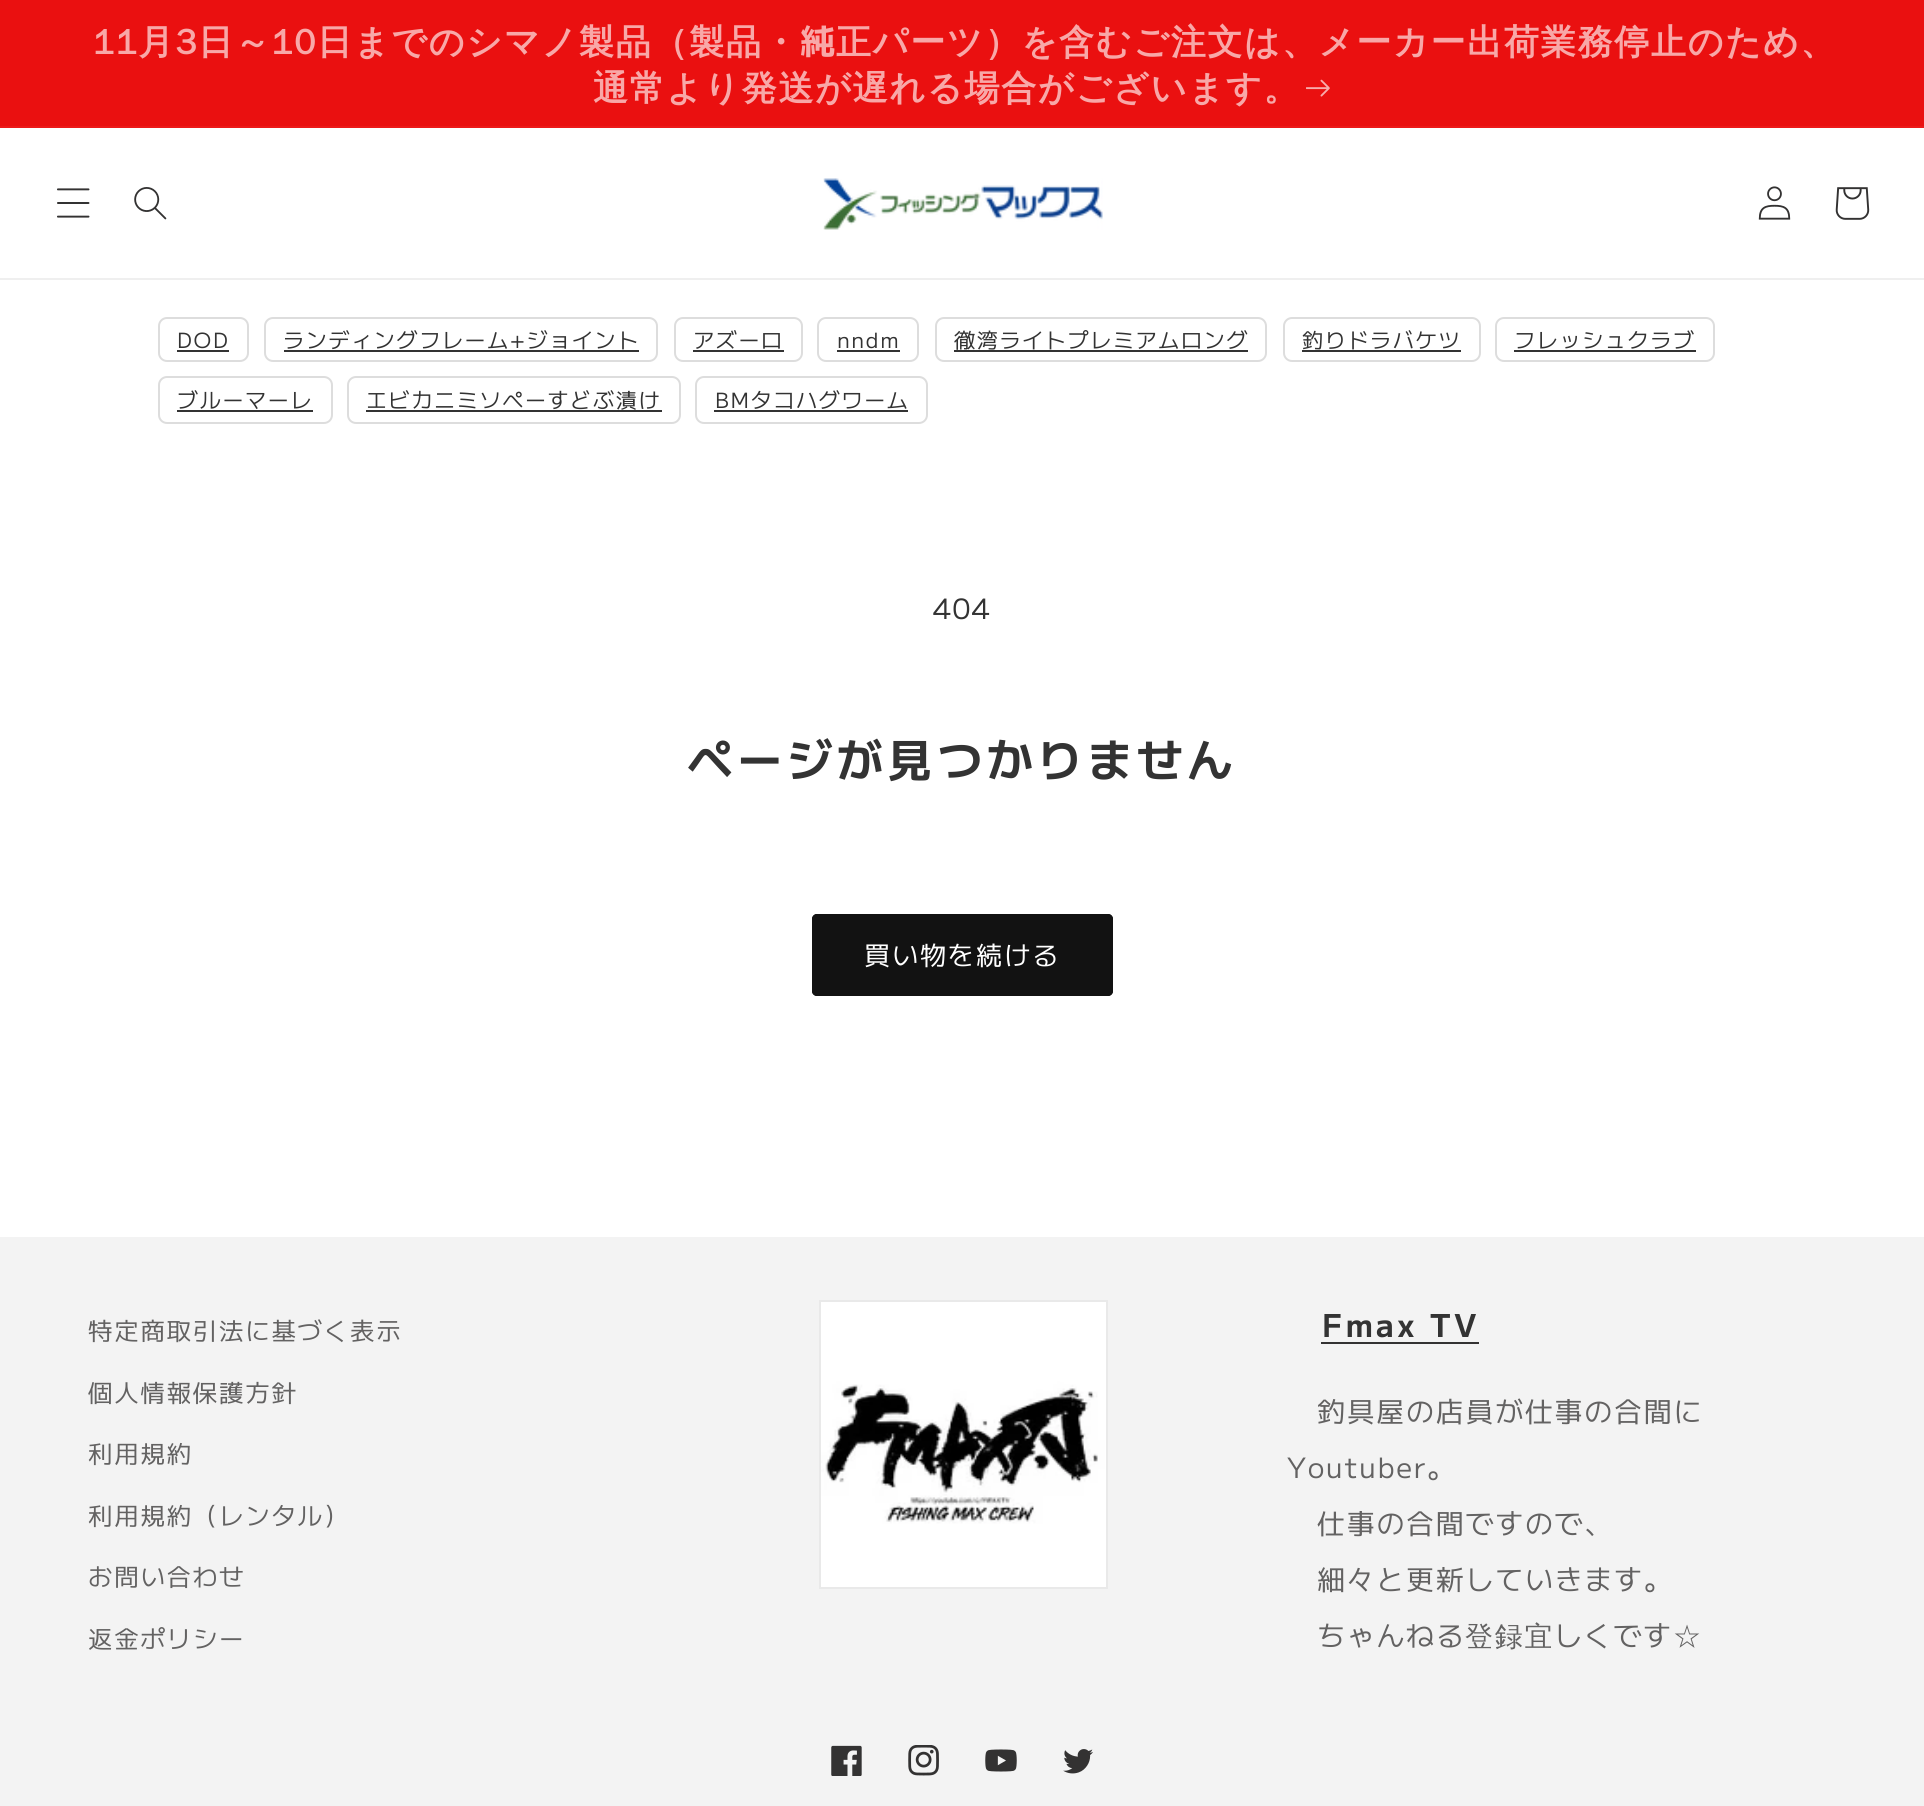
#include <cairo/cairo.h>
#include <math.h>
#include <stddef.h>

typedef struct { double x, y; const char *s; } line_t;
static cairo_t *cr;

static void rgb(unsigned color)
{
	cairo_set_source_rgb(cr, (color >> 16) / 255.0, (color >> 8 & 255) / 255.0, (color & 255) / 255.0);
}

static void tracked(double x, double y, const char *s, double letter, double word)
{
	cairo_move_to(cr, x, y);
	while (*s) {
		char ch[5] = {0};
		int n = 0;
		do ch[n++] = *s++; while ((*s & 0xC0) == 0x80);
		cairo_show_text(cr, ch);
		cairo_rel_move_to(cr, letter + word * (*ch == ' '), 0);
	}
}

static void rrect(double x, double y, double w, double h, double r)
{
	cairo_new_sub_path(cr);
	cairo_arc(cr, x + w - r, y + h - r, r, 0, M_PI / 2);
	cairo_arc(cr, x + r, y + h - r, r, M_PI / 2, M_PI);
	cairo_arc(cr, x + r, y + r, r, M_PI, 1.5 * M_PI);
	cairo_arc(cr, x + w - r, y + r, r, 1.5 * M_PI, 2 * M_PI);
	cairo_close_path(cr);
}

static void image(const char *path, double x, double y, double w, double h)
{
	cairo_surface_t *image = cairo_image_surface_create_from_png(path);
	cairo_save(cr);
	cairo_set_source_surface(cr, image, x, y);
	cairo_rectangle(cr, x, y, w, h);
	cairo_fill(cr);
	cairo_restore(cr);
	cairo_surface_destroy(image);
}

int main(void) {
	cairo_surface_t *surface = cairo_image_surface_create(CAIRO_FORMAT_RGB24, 1924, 1806);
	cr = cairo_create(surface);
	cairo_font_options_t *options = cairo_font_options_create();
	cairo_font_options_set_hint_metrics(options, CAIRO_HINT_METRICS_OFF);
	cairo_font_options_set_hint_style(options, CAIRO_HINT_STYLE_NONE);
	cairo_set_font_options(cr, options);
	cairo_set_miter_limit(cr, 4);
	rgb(0xffffff);
	cairo_paint(cr);
	rgb(0xec1a1a);
	cairo_rectangle(cr, 0, 126, 1924, 2);
	cairo_fill(cr);
	rgb(0xea1010);
	cairo_rectangle(cr, 0, 0, 1924, 126);
	cairo_fill(cr);
	image("img/1.png", 1306, 79, 24, 18);
	rgb(0xefefef);
	cairo_rectangle(cr, 0, 278, 1924, 2);
	cairo_fill(cr);
	image("img/2.png", 57, 188, 33, 30);
	image("img/3.png", 134, 187, 33, 33);
	image("img/4.png", 823, 178, 280, 52);
	image("img/5.png", 1758, 186, 33, 34);
	image("img/6.png", 1835, 187, 35, 33);
	rrect(159, 318, 89, 43, 8);
	rgb(0xdddddd);
	cairo_stroke(cr);
	rgb(0x333333);
	cairo_rectangle(cr, 177, 350, 52, 2);
	cairo_fill(cr);
	rrect(265, 318, 392, 43, 8);
	rgb(0xdddddd);
	cairo_stroke(cr);
	rgb(0x333333);
	cairo_rectangle(cr, 284, 350, 355, 2);
	cairo_fill(cr);
	rrect(675, 318, 127, 43, 8);
	rgb(0xdddddd);
	cairo_stroke(cr);
	rgb(0x333333);
	cairo_rectangle(cr, 693, 350, 91, 2);
	cairo_fill(cr);
	rrect(818, 318, 100, 43, 8);
	rgb(0xdddddd);
	cairo_stroke(cr);
	rgb(0x333333);
	cairo_rectangle(cr, 837, 350, 63, 2);
	cairo_fill(cr);
	rrect(936, 318, 330, 43, 8);
	rgb(0xdddddd);
	cairo_stroke(cr);
	rgb(0x333333);
	cairo_rectangle(cr, 954, 350, 294, 2);
	cairo_fill(cr);
	rrect(1284, 318, 196, 43, 8);
	rgb(0xdddddd);
	cairo_stroke(cr);
	rgb(0x333333);
	cairo_rectangle(cr, 1302, 350, 159, 2);
	cairo_fill(cr);
	rrect(1496, 318, 218, 43, 8);
	rgb(0xdddddd);
	cairo_stroke(cr);
	rgb(0x333333);
	cairo_rectangle(cr, 1514, 350, 182, 2);
	cairo_fill(cr);
	rrect(159, 377, 173, 46, 8);
	rgb(0xdddddd);
	cairo_stroke(cr);
	rgb(0x333333);
	cairo_rectangle(cr, 177, 410, 136, 2);
	cairo_fill(cr);
	rrect(348, 377, 332, 46, 8);
	rgb(0xdddddd);
	cairo_stroke(cr);
	rgb(0x333333);
	cairo_rectangle(cr, 366, 410, 296, 2);
	cairo_fill(cr);
	rrect(696, 377, 231, 46, 8);
	rgb(0xdddddd);
	cairo_stroke(cr);
	rgb(0x333333);
	cairo_rectangle(cr, 714, 410, 194, 2);
	cairo_fill(cr);
	rgb(0x121212);
	rrect(812, 914, 301, 82, 5);
	cairo_fill(cr);
	rrect(813, 915, 299, 80, 4);
	cairo_stroke(cr);
	rgb(0xf3f3f3);
	cairo_rectangle(cr, 0, 1237, 1924, 569);
	cairo_fill(cr);
	cairo_rectangle(cr, 820, 1301, 287, 287);
	rgb(0xe9e9e9);
	cairo_stroke(cr);
	image("img/7.png", 821, 1302, 285, 285);
	rgb(0x333232);
	cairo_rectangle(cr, 1321, 1342, 158, 2);
	cairo_fill(cr);
	image("img/8.png", 831, 1745, 31, 31);
	image("img/9.png", 908, 1745, 31, 31);
	image("img/10.png", 985, 1749, 32, 23);
	image("img/11.png", 1063, 1749, 30, 25);
	cairo_select_font_face(cr, "WenQuanYi Zen Hei", CAIRO_FONT_SLANT_NORMAL, CAIRO_FONT_WEIGHT_BOLD);
	cairo_set_font_size(cr, 35);
	rgb(0xf8a8a8);
	tracked(93, 54, "11月3日～10日までのシマノ製品（製品・", 1.75, 0);
	cairo_select_font_face(cr, "M PLUS 1", CAIRO_FONT_SLANT_NORMAL, CAIRO_FONT_WEIGHT_BOLD);
	tracked(800, 54, "純", 1.75, 0);
	cairo_select_font_face(cr, "WenQuanYi Zen Hei", CAIRO_FONT_SLANT_NORMAL, CAIRO_FONT_WEIGHT_BOLD);
	tracked(836, 54, "正パーツ）を含むご注文は、メーカー出荷業務停止のため、", 1.75, 0);
	tracked(593, 100, "通常より発送が遅れる場合がございます。", 1.75, 0);
	cairo_select_font_face(cr, "M PLUS 1", CAIRO_FONT_SLANT_NORMAL, CAIRO_FONT_WEIGHT_NORMAL);
	cairo_set_font_size(cr, 21);
	rgb(0x333333);
	{
		static const line_t items[] = {
			{177, 348, "DOD"},
			{283, 348, "ランディングフレーム+ジョイント"},
			{693, 348, "アズーロ"},
			{837, 348, "nndm"},
			{954, 348, "徹湾ライトプレミアムロング"},
			{1302, 348, "釣りドラバケツ"},
			{1514, 348, "フレッシュクラブ"},
			{177, 408, "ブルーマーレ"},
			{366, 408, "エビカニミソぺーすどぶ漬け"},
			{715, 408, "BMタコハグワーム"},
		};
		for (size_t i = 0; i < sizeof items / sizeof *items; i++) {
			tracked(items[i].x, items[i].y, items[i].s, 1.7, 0);
		}
	}
	cairo_set_font_size(cr, 28);
	tracked(933, 619, "404", 1.7, 0);
	cairo_select_font_face(cr, "M PLUS 1", CAIRO_FONT_SLANT_NORMAL, CAIRO_FONT_WEIGHT_BOLD);
	cairo_set_font_size(cr, 45.5);
	tracked(687, 777, "ページが見つかりません", 4.5, 0);
	cairo_select_font_face(cr, "M PLUS 1", CAIRO_FONT_SLANT_NORMAL, CAIRO_FONT_WEIGHT_NORMAL);
	cairo_set_font_size(cr, 26.25);
	rgb(0xffffff);
	tracked(864, 965, "買い物を続ける", 1.75, 0);
	cairo_set_font_size(cr, 24.5);
	rgb(0x636262);
	{
		static const line_t items[] = {
			{88, 1340, "特定商取引法に基づく表示"},
			{88, 1402, "個人情報保護方針"},
			{88, 1463, "利用規約"},
			{88, 1525, "利用規約（レンタル）"},
			{88, 1586, "お問い合わせ"},
			{88, 1648, "返金ポリシー"},
		};
		for (size_t i = 0; i < sizeof items / sizeof *items; i++) {
			tracked(items[i].x, items[i].y, items[i].s, 1.7, 0);
		}
	}
	cairo_select_font_face(cr, "M PLUS 1", CAIRO_FONT_SLANT_NORMAL, CAIRO_FONT_WEIGHT_BOLD);
	cairo_set_font_size(cr, 31.5);
	rgb(0x333333);
	tracked(1322, 1337, "Fmax TV", 3.25, 0);
	cairo_select_font_face(cr, "M PLUS 1", CAIRO_FONT_SLANT_NORMAL, CAIRO_FONT_WEIGHT_NORMAL);
	cairo_set_font_size(cr, 28);
	rgb(0x636262);
	{
		static const line_t items[] = {
			{1317, 1422, "釣具屋の店員が仕事の合間に"},
			{1287, 1478, "Youtuber。"},
			{1317, 1534, "仕事の合間ですので、"},
			{1317, 1590, "細々と更新していきます。"},
			{1317, 1646, "ちゃんねる"},
		};
		for (size_t i = 0; i < sizeof items / sizeof *items; i++) {
			tracked(items[i].x, items[i].y, items[i].s, 1.7, 0);
		}
	}
	cairo_select_font_face(cr, "WenQuanYi Zen Hei Medium", CAIRO_FONT_SLANT_NORMAL, CAIRO_FONT_WEIGHT_NORMAL);
	tracked(1465, 1646, "登録宜", 1.7, 0);
	cairo_select_font_face(cr, "M PLUS 1", CAIRO_FONT_SLANT_NORMAL, CAIRO_FONT_WEIGHT_NORMAL);
	tracked(1554, 1646, "しくです", 1.7, 0);
	cairo_select_font_face(cr, "WenQuanYi Zen Hei Medium", CAIRO_FONT_SLANT_NORMAL, CAIRO_FONT_WEIGHT_NORMAL);
	tracked(1673, 1646, "☆", 1.7, 0);
	cairo_surface_write_to_png(surface, "page.png");
	cairo_font_options_destroy(options);
	cairo_destroy(cr);
	cairo_surface_destroy(surface);
	return 0;
}
